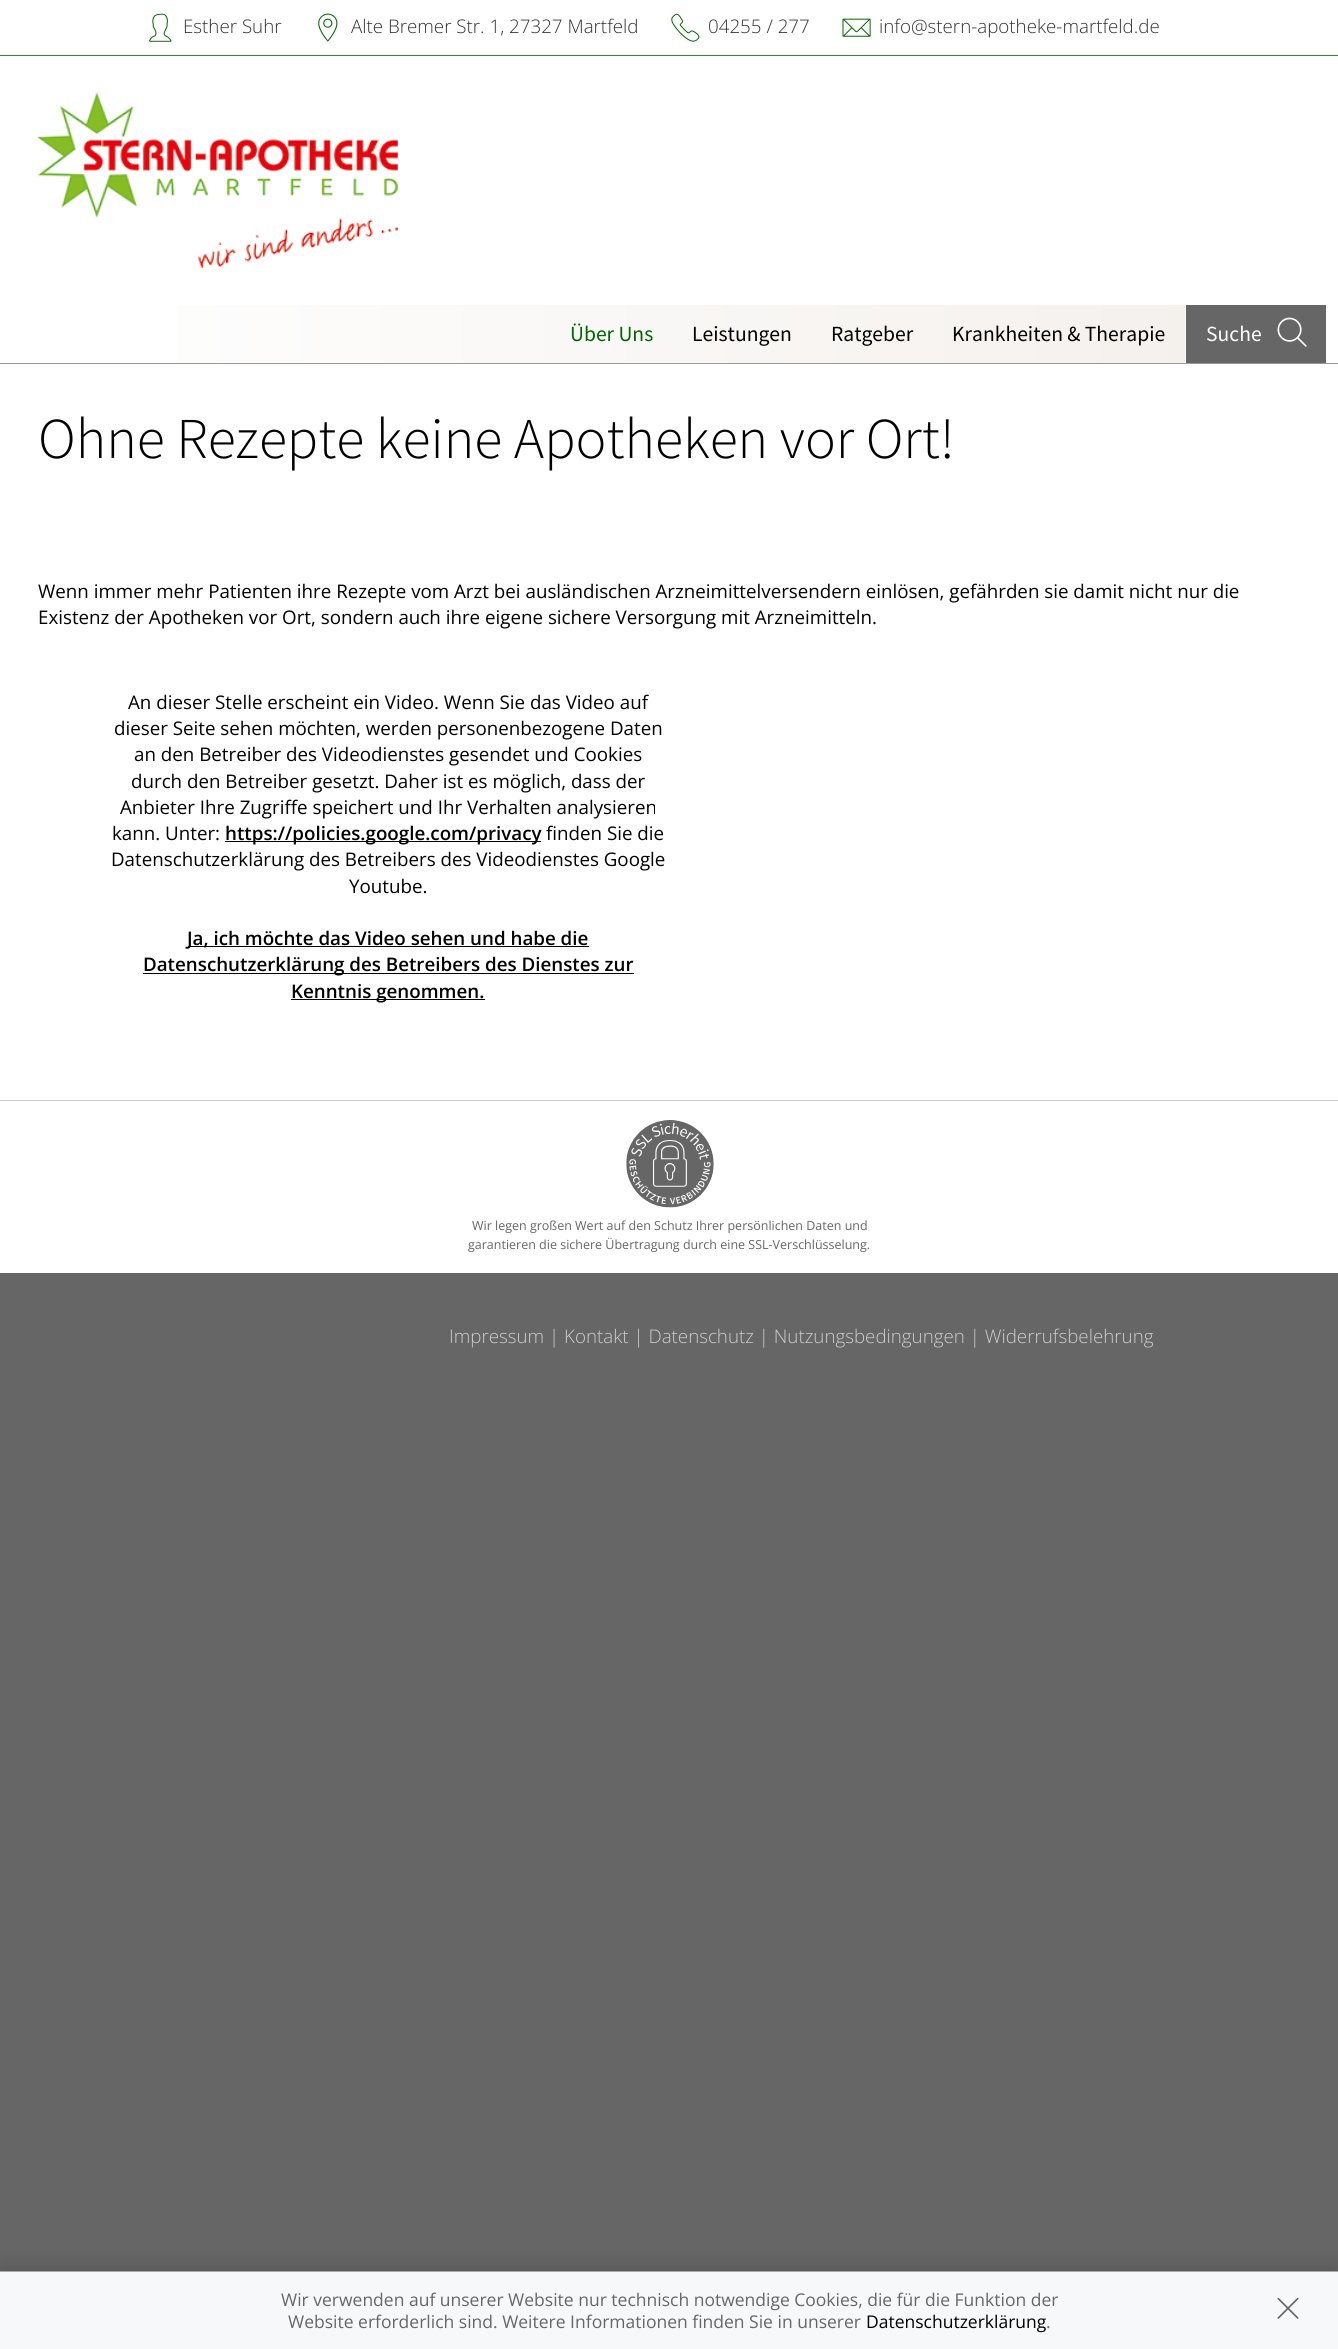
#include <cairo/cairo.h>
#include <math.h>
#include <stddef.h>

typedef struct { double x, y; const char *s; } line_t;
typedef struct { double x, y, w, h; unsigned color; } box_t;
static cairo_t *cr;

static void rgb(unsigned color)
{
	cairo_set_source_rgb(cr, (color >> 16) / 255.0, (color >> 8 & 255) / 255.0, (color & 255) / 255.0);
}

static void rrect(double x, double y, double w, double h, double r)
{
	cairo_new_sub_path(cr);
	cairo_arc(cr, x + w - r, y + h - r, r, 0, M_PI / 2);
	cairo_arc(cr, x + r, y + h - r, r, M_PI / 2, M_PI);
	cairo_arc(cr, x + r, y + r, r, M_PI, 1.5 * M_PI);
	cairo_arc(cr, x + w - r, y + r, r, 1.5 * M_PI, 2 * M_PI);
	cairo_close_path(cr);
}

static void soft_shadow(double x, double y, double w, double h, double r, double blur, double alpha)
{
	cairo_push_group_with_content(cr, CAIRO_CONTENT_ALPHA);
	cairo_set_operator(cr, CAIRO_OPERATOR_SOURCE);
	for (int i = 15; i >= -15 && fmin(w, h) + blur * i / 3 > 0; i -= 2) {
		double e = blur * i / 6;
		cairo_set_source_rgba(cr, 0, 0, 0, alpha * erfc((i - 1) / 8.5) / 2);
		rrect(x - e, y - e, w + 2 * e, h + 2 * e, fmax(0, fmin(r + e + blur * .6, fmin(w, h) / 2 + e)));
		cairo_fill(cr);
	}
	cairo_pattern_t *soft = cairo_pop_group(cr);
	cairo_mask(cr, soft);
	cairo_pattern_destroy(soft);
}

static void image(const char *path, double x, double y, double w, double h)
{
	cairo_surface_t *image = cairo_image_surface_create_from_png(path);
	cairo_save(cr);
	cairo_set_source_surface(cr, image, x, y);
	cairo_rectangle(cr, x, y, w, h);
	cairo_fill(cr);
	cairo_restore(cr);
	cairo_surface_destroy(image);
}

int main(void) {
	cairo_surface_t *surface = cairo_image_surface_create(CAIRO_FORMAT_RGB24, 1338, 2349);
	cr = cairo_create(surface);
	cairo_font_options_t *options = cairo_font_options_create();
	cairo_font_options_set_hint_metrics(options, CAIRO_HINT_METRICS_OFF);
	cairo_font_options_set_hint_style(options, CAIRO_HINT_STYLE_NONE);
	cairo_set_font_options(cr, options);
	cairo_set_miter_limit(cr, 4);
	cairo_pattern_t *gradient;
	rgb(0x666666);
	cairo_paint(cr);
	rgb(0xffffff);
	cairo_rectangle(cr, 0, 0, 1338, 363);
	cairo_fill(cr);
	rgb(0x318c2a);
	cairo_rectangle(cr, 0, 55, 1338, 1);
	cairo_fill(cr);
	image("img/1.png", 149, 13, 23, 29);
	image("img/2.png", 318, 13, 20, 29);
	image("img/3.png", 671, 13, 29, 29);
	image("img/4.png", 842, 18, 29, 19);
	image("img/5.png", 37, 92, 361, 176);
	image("img/6.png", 37, 92, 361, 176);
	gradient = cairo_pattern_create_linear(13, 334, 1326, 334);
	cairo_pattern_add_color_stop_rgba(gradient, 0, 1, 1, 1, 1);
	cairo_pattern_add_color_stop_rgba(gradient, 1, 0.953, 0.937, 0.922, 1);
	cairo_set_source(cr, gradient);
	cairo_pattern_destroy(gradient);
	cairo_rectangle(cr, 177, 305, 1008, 58);
	cairo_fill(cr);
	rgb(0x666666);
	cairo_rectangle(cr, 1186, 305, 140, 58);
	cairo_fill(cr);
	image("img/7.png", 1277, 317, 30, 30);
	{
		static const box_t items[] = {
			{0, 364, 1338, 736, 0xffffff},
			{0, 363, 1338, 1, 0x999999},
			{225, 841, 316, 1, 0x000000},
			{188, 946, 401, 1, 0x000000},
			{143, 973, 491, 1, 0x000000},
			{291, 999, 194, 1, 0x000000},
			{0, 1101, 1338, 172, 0xffffff},
			{0, 1100, 1338, 1, 0xcccccc},
		};
		for (size_t i = 0; i < sizeof items / sizeof *items; i++) {
			rgb(items[i].color);
			cairo_rectangle(cr, items[i].x, items[i].y, items[i].w, items[i].h);
			cairo_fill(cr);
		}
	}
	image("img/8.png", 626, 1120, 88, 88);
	rgb(0x000000);
	soft_shadow(0, 2271, 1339, 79, 0, 12.5, 0.2);
	rgb(0xf7f8f9);
	cairo_rectangle(cr, 0, 2272, 1338, 77);
	cairo_fill(cr);
	rgb(0xa9a9a9);
	cairo_rectangle(cr, 0, 2271, 1338, 1);
	cairo_fill(cr);
	image("img/9.png", 1277, 2297, 22, 22);
	cairo_select_font_face(cr, "Open Sans Light", CAIRO_FONT_SLANT_NORMAL, CAIRO_FONT_WEIGHT_NORMAL);
	cairo_set_font_size(cr, 18.75);
	rgb(0x333333);
	{
		static const line_t items[] = {
			{183, 33, "Esther Suhr"},
			{351, 33, "Alte Bremer Str. 1, 27327 Martfeld"},
			{708, 33, "04255 / 277"},
			{879, 33, "info@stern-apotheke-martfeld.de"},
		};
		for (size_t i = 0; i < sizeof items / sizeof *items; i++) {
			cairo_move_to(cr, items[i].x, items[i].y);
			cairo_show_text(cr, items[i].s);
		}
	}
	cairo_select_font_face(cr, "Source Sans Pro", CAIRO_FONT_SLANT_NORMAL, CAIRO_FONT_WEIGHT_NORMAL);
	cairo_set_font_size(cr, 21.6);
	rgb(0x006600);
	cairo_move_to(cr, 570, 341);
	cairo_show_text(cr, "Über Uns");
	rgb(0x000000);
	{
		static const line_t items[] = {
			{692, 341, "Leistungen"},
			{831, 341, "Ratgeber"},
			{952, 341, "Krankheiten & Therapie"},
		};
		for (size_t i = 0; i < sizeof items / sizeof *items; i++) {
			cairo_move_to(cr, items[i].x, items[i].y);
			cairo_show_text(cr, items[i].s);
		}
	}
	rgb(0xffffff);
	cairo_move_to(cr, 1206, 341);
	cairo_show_text(cr, "Suche");
	cairo_select_font_face(cr, "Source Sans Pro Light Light", CAIRO_FONT_SLANT_NORMAL, CAIRO_FONT_WEIGHT_NORMAL);
	cairo_set_font_size(cr, 57.75);
	rgb(0x000000);
	cairo_move_to(cr, 38, 458);
	cairo_show_text(cr, "Ohne Rezepte keine Apotheken vor Ort!");
	cairo_select_font_face(cr, "Open Sans", CAIRO_FONT_SLANT_NORMAL, CAIRO_FONT_WEIGHT_NORMAL);
	cairo_set_font_size(cr, 18.75);
	{
		static const line_t items[] = {
			{38, 598, "Wenn immer mehr Patienten ihre Rezepte vom Arzt bei ausländischen Arzneimittelversendern einlösen, gefährden sie damit nicht nur die"},
			{38, 624, "Existenz der Apotheken vor Ort, sondern auch ihre eigene sichere Versorgung mit Arzneimitteln."},
			{128, 709, "An dieser Stelle erscheint ein Video. Wenn Sie das Video auf"},
			{114, 735, "dieser Seite sehen möchten, werden personenbezogene Daten"},
			{134, 761, "an den Betreiber des Videodienstes gesendet und Cookies"},
			{131, 788, "durch den Betreiber gesetzt. Daher ist es möglich, dass der"},
			{120, 814, "Anbieter Ihre Zugriffe speichert und Ihr Verhalten analysieren"},
			{112, 840, "kann. Unter:"},
		};
		for (size_t i = 0; i < sizeof items / sizeof *items; i++) {
			cairo_move_to(cr, items[i].x, items[i].y);
			cairo_show_text(cr, items[i].s);
		}
	}
	cairo_select_font_face(cr, "Open Sans SemiBold", CAIRO_FONT_SLANT_NORMAL, CAIRO_FONT_WEIGHT_NORMAL);
	cairo_move_to(cr, 225, 840);
	cairo_show_text(cr, "https://policies.google.com/privacy");
	cairo_select_font_face(cr, "Open Sans", CAIRO_FONT_SLANT_NORMAL, CAIRO_FONT_WEIGHT_NORMAL);
	{
		static const line_t items[] = {
			{546, 840, "finden Sie die"},
			{111, 866, "Datenschutzerklärung des Betreibers des Videodienstes Google"},
			{349, 893, "Youtube."},
		};
		for (size_t i = 0; i < sizeof items / sizeof *items; i++) {
			cairo_move_to(cr, items[i].x, items[i].y);
			cairo_show_text(cr, items[i].s);
		}
	}
	cairo_select_font_face(cr, "Open Sans SemiBold", CAIRO_FONT_SLANT_NORMAL, CAIRO_FONT_WEIGHT_NORMAL);
	{
		static const line_t items[] = {
			{187, 945, "Ja, ich möchte das Video sehen und habe die"},
			{143, 971, "Datenschutzerklärung des Betreibers des Dienstes zur"},
			{291, 998, "Kenntnis genommen."},
		};
		for (size_t i = 0; i < sizeof items / sizeof *items; i++) {
			cairo_move_to(cr, items[i].x, items[i].y);
			cairo_show_text(cr, items[i].s);
		}
	}
	cairo_select_font_face(cr, "Open Sans", CAIRO_FONT_SLANT_NORMAL, CAIRO_FONT_WEIGHT_NORMAL);
	cairo_set_font_size(cr, 12.5);
	rgb(0x666666);
	cairo_move_to(cr, 472, 1230);
	cairo_show_text(cr, "Wir legen großen Wert auf den Schutz Ihrer persönlichen Daten und");
	cairo_move_to(cr, 468, 1249);
	cairo_show_text(cr, "garantieren die sichere Übertragung durch eine SSL-Verschlüsselung.");
	cairo_select_font_face(cr, "Open Sans Light", CAIRO_FONT_SLANT_NORMAL, CAIRO_FONT_WEIGHT_NORMAL);
	cairo_set_font_size(cr, 18.75);
	rgb(0xcccccc);
	cairo_move_to(cr, 449, 1343);
	cairo_show_text(cr, "Impressum | Kontakt | Datenschutz | Nutzungsbedingungen | Widerrufsbelehrung");
	cairo_select_font_face(cr, "Open Sans", CAIRO_FONT_SLANT_NORMAL, CAIRO_FONT_WEIGHT_NORMAL);
	cairo_set_font_size(cr, 17.5);
	rgb(0x666666);
	cairo_move_to(cr, 281, 2306);
	cairo_show_text(cr, "Wir verwenden auf unserer Website nur technisch notwendige Cookies, die für die Funktion der");
	cairo_move_to(cr, 288, 2328);
	cairo_show_text(cr, "Website erforderlich sind. Weitere Informationen finden Sie in unserer");
	rgb(0x000000);
	cairo_move_to(cr, 866, 2328);
	cairo_show_text(cr, "Datenschutzerklärung");
	rgb(0x666666);
	cairo_move_to(cr, 1046, 2328);
	cairo_show_text(cr, ".");
	cairo_surface_write_to_png(surface, "page.png");
	cairo_font_options_destroy(options);
	cairo_destroy(cr);
	cairo_surface_destroy(surface);
	return 0;
}
